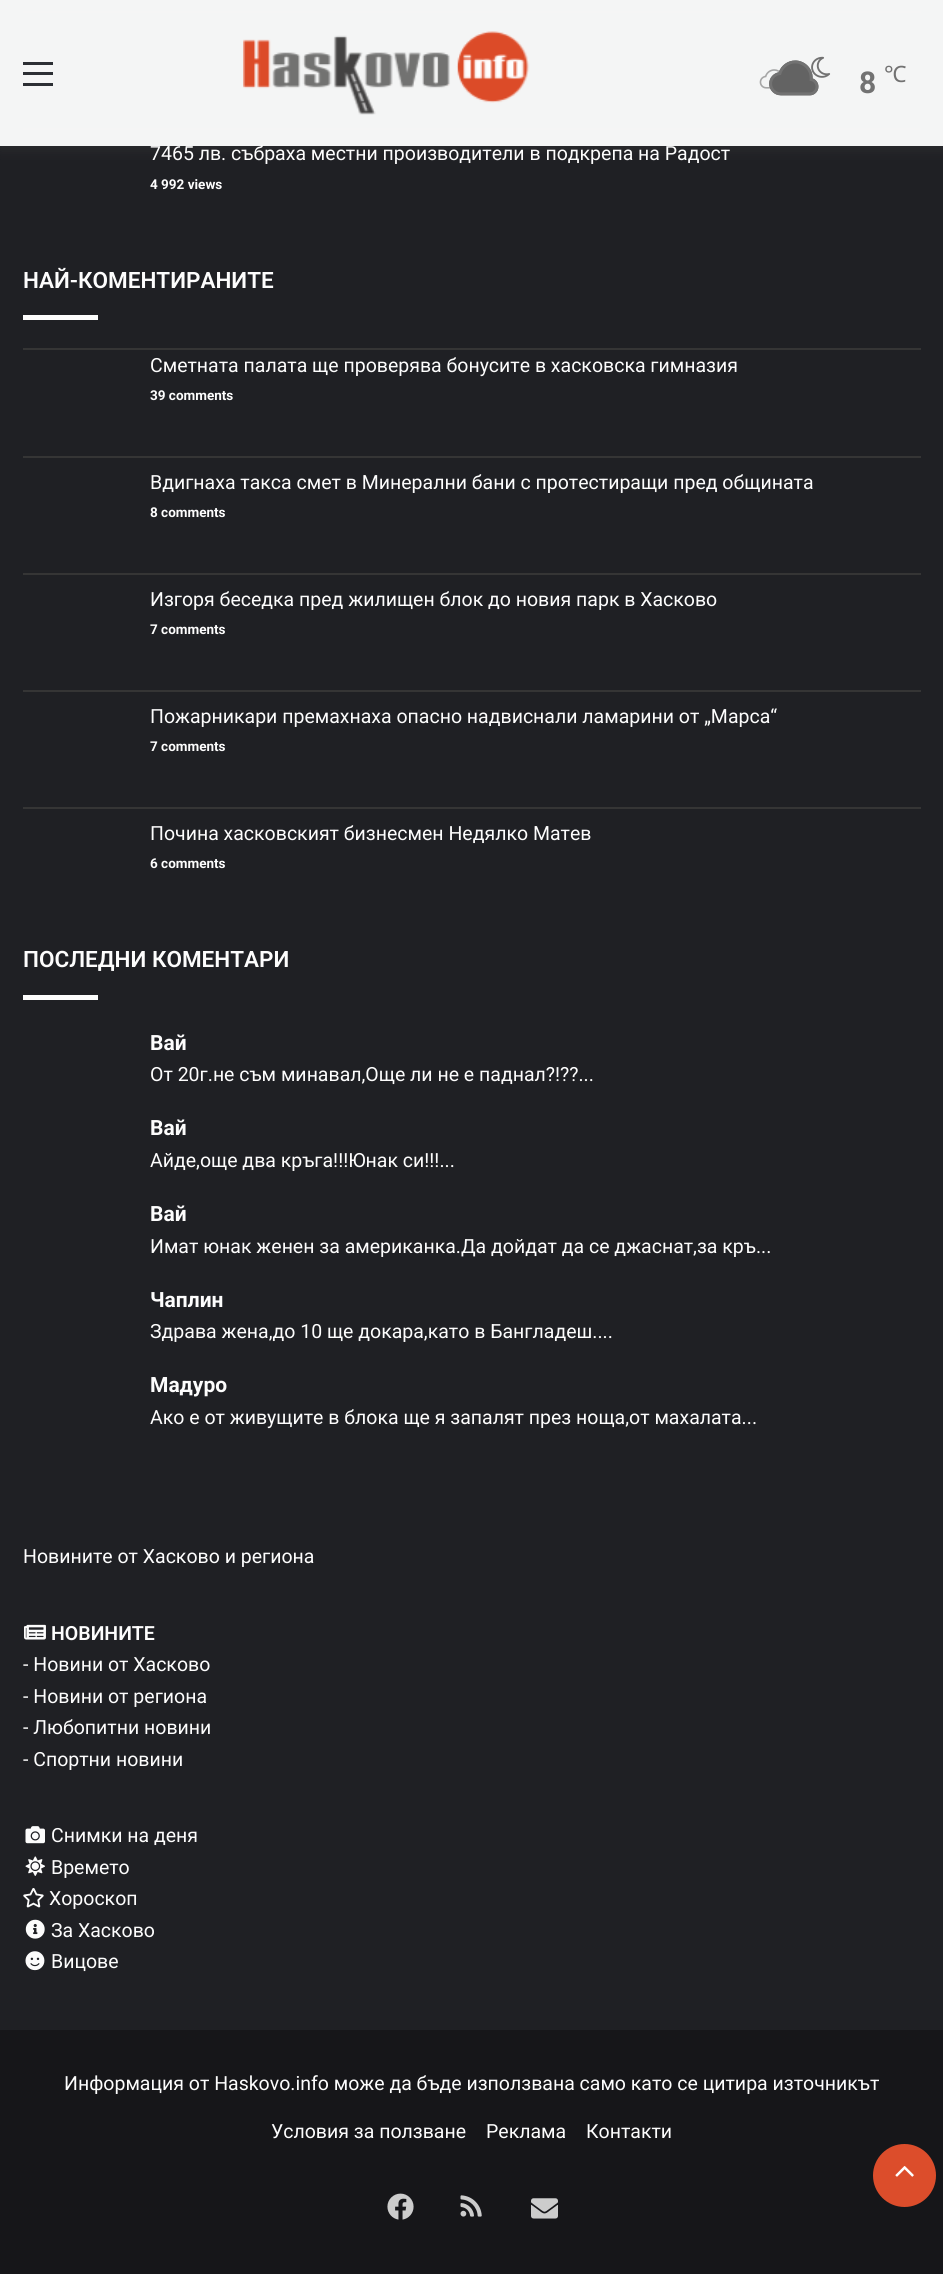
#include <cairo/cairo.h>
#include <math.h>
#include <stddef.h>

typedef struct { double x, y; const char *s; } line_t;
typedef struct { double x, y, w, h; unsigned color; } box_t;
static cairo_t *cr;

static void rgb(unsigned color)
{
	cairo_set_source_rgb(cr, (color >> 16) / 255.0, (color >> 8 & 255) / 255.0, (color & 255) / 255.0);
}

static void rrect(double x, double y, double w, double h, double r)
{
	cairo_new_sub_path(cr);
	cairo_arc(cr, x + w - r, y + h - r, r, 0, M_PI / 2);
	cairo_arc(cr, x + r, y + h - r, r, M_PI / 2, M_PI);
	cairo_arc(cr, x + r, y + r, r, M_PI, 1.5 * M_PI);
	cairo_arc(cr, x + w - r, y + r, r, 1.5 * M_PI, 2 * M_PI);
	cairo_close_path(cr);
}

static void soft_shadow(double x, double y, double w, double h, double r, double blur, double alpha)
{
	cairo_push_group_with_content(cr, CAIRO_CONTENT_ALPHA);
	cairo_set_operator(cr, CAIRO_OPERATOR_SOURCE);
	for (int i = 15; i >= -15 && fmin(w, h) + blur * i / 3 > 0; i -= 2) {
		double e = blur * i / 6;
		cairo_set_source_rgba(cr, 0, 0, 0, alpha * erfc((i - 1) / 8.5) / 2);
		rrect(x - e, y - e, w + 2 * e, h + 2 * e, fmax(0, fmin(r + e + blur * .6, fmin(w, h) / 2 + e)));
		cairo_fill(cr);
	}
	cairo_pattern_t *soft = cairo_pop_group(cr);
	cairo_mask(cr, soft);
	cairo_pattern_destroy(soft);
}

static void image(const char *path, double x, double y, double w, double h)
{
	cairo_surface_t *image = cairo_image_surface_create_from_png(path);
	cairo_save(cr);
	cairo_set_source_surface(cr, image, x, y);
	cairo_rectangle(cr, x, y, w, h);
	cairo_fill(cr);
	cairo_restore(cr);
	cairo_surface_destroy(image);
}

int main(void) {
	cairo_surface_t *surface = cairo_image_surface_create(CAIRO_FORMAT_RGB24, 943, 2274);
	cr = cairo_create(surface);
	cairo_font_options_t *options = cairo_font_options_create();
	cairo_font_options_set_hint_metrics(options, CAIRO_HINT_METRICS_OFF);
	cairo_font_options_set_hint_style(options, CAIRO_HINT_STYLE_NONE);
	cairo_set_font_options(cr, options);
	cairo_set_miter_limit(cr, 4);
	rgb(0x1f2024);
	cairo_paint(cr);
	rgb(0x353535);
	cairo_rectangle(cr, 23, 11, 898, 2);
	cairo_fill(cr);
	cairo_rectangle(cr, 23, 128, 898, 2);
	cairo_fill(cr);
	cairo_save(cr);
	cairo_set_fill_rule(cr, CAIRO_FILL_RULE_EVEN_ODD);
	cairo_new_path(cr);
	cairo_move_to(cr, 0, 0);
	cairo_line_to(cr, 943, 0);
	cairo_line_to(cr, 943, 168);
	cairo_line_to(cr, 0, 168);
	cairo_close_path(cr);
	cairo_move_to(cr, 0, 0);
	cairo_line_to(cr, 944, 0);
	cairo_line_to(cr, 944, 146);
	cairo_line_to(cr, 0, 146);
	cairo_close_path(cr);
	cairo_clip(cr);
	rgb(0x636363);
	soft_shadow(0, 3, 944, 146, 0, 6, 0.2);
	cairo_restore(cr);
	{
		static const box_t items[] = {
			{23, 315, 75, 5, 0xfdfdfd},
			{23, 348, 898, 2, 0x353535},
			{23, 456, 898, 2, 0x353535},
			{23, 573, 898, 2, 0x353535},
			{23, 690, 898, 2, 0x353535},
			{23, 807, 898, 2, 0x353535},
			{23, 995, 75, 5, 0xfdfdfd},
		};
		for (size_t i = 0; i < sizeof items / sizeof *items; i++) {
			rgb(items[i].color);
			cairo_rectangle(cr, items[i].x, items[i].y, items[i].w, items[i].h);
			cairo_fill(cr);
		}
	}
	image("img/6.png", 24, 1624, 22, 16);
	image("img/7.png", 25, 1826, 20, 18);
	image("img/8.png", 25, 1856, 20, 20);
	image("img/9.png", 23, 1888, 21, 20);
	image("img/10.png", 25, 1919, 20, 20);
	image("img/11.png", 25, 1951, 20, 20);
	rgb(0x161619);
	cairo_rectangle(cr, 0, 2030, 943, 244);
	cairo_fill(cr);
	image("img/12.png", 387, 2193, 27, 27);
	image("img/13.png", 460, 2195, 22, 22);
	image("img/14.png", 531, 2198, 27, 21);
	rgb(0xdc4d2b);
	cairo_arc(cr, 904.5, 2175.5, 31.5, 0, 2 * M_PI);
	cairo_fill(cr);
	image("img/15.png", 895, 2166, 19, 11);
	cairo_select_font_face(cr, "Roboto", CAIRO_FONT_SLANT_NORMAL, CAIRO_FONT_WEIGHT_NORMAL);
	cairo_set_font_size(cr, 19.5);
	rgb(0xfdfdfd);
	cairo_move_to(cr, 150, 160);
	cairo_show_text(cr, "7465 лв. събраха местни производители в подкрепа на Радост");
	cairo_set_source_rgba(cr, 1, 1, 1, 0.95);
	cairo_rectangle(cr, 0, 0, 943, 146);
	cairo_fill(cr);
	rgb(0x2c2f34);
	cairo_rectangle(cr, 23, 83, 30, 3);
	cairo_fill(cr);
	cairo_rectangle(cr, 23, 62, 30, 3);
	cairo_fill(cr);
	cairo_rectangle(cr, 23, 72, 30, 3);
	cairo_fill(cr);
	image("img/5.png", 759, 69, 21, 20);
	image("img/3.png", 811, 56, 20, 22);
	image("img/2.png", 769, 60, 50, 36);
	image("img/4.png", 769, 60, 50, 36);
	cairo_select_font_face(cr, "Noto Sans", CAIRO_FONT_SLANT_NORMAL, CAIRO_FONT_WEIGHT_NORMAL);
	cairo_set_font_size(cr, 22.5);
	rgb(0x727272);
	cairo_move_to(cr, 884, 82);
	cairo_show_text(cr, "℃");
	cairo_select_font_face(cr, "Roboto", CAIRO_FONT_SLANT_NORMAL, CAIRO_FONT_WEIGHT_BOLD);
	cairo_set_font_size(cr, 30);
	cairo_move_to(cr, 859, 93);
	cairo_show_text(cr, "8");
	image("img/1.png", 243, 31, 287, 84);
	cairo_set_font_size(cr, 13.5);
	rgb(0xfdfdfd);
	cairo_move_to(cr, 150, 189);
	cairo_show_text(cr, "4 992 views");
	cairo_select_font_face(cr, "Roboto SemiBold", CAIRO_FONT_SLANT_NORMAL, CAIRO_FONT_WEIGHT_NORMAL);
	cairo_set_font_size(cr, 22.5);
	cairo_move_to(cr, 23, 288);
	cairo_show_text(cr, "НАЙ-КОМЕНТИРАНИТЕ");
	cairo_select_font_face(cr, "Roboto", CAIRO_FONT_SLANT_NORMAL, CAIRO_FONT_WEIGHT_NORMAL);
	cairo_set_font_size(cr, 19.5);
	cairo_move_to(cr, 150, 372);
	cairo_show_text(cr, "Сметната палата ще проверява бонусите в хасковска гимназия");
	cairo_select_font_face(cr, "Roboto", CAIRO_FONT_SLANT_NORMAL, CAIRO_FONT_WEIGHT_BOLD);
	cairo_set_font_size(cr, 13.5);
	cairo_move_to(cr, 150, 400);
	cairo_show_text(cr, "39 comments");
	cairo_select_font_face(cr, "Roboto", CAIRO_FONT_SLANT_NORMAL, CAIRO_FONT_WEIGHT_NORMAL);
	cairo_set_font_size(cr, 19.5);
	cairo_move_to(cr, 150, 489);
	cairo_show_text(cr, "Вдигнаха такса смет в Минерални бани с протестиращи пред общината");
	cairo_select_font_face(cr, "Roboto", CAIRO_FONT_SLANT_NORMAL, CAIRO_FONT_WEIGHT_BOLD);
	cairo_set_font_size(cr, 13.5);
	cairo_move_to(cr, 150, 517);
	cairo_show_text(cr, "8 comments");
	cairo_select_font_face(cr, "Roboto", CAIRO_FONT_SLANT_NORMAL, CAIRO_FONT_WEIGHT_NORMAL);
	cairo_set_font_size(cr, 19.5);
	cairo_move_to(cr, 150, 606);
	cairo_show_text(cr, "Изгоря беседка пред жилищен блок до новия парк в Хасково");
	cairo_select_font_face(cr, "Roboto", CAIRO_FONT_SLANT_NORMAL, CAIRO_FONT_WEIGHT_BOLD);
	cairo_set_font_size(cr, 13.5);
	cairo_move_to(cr, 150, 634);
	cairo_show_text(cr, "7 comments");
	cairo_select_font_face(cr, "Roboto", CAIRO_FONT_SLANT_NORMAL, CAIRO_FONT_WEIGHT_NORMAL);
	cairo_set_font_size(cr, 19.5);
	cairo_move_to(cr, 150, 723);
	cairo_show_text(cr, "Пожарникари премахнаха опасно надвиснали ламарини от „Марса“");
	cairo_select_font_face(cr, "Roboto", CAIRO_FONT_SLANT_NORMAL, CAIRO_FONT_WEIGHT_BOLD);
	cairo_set_font_size(cr, 13.5);
	cairo_move_to(cr, 150, 751);
	cairo_show_text(cr, "7 comments");
	cairo_select_font_face(cr, "Roboto", CAIRO_FONT_SLANT_NORMAL, CAIRO_FONT_WEIGHT_NORMAL);
	cairo_set_font_size(cr, 19.5);
	cairo_move_to(cr, 150, 840);
	cairo_show_text(cr, "Почина хасковският бизнесмен Недялко Матев");
	cairo_select_font_face(cr, "Roboto", CAIRO_FONT_SLANT_NORMAL, CAIRO_FONT_WEIGHT_BOLD);
	cairo_set_font_size(cr, 13.5);
	cairo_move_to(cr, 150, 868);
	cairo_show_text(cr, "6 comments");
	cairo_select_font_face(cr, "Roboto SemiBold", CAIRO_FONT_SLANT_NORMAL, CAIRO_FONT_WEIGHT_NORMAL);
	cairo_set_font_size(cr, 22.5);
	cairo_move_to(cr, 23, 967);
	cairo_show_text(cr, "ПОСЛЕДНИ КОМЕНТАРИ");
	cairo_select_font_face(cr, "Roboto", CAIRO_FONT_SLANT_NORMAL, CAIRO_FONT_WEIGHT_BOLD);
	cairo_set_font_size(cr, 21);
	cairo_move_to(cr, 150, 1050);
	cairo_show_text(cr, "Вай");
	cairo_select_font_face(cr, "Roboto", CAIRO_FONT_SLANT_NORMAL, CAIRO_FONT_WEIGHT_NORMAL);
	cairo_set_font_size(cr, 19.5);
	cairo_move_to(cr, 150, 1081);
	cairo_show_text(cr, "От 20г.не съм минавал,Още ли не е паднал?!?\077...");
	cairo_select_font_face(cr, "Roboto", CAIRO_FONT_SLANT_NORMAL, CAIRO_FONT_WEIGHT_BOLD);
	cairo_set_font_size(cr, 21);
	cairo_move_to(cr, 150, 1135);
	cairo_show_text(cr, "Вай");
	cairo_select_font_face(cr, "Roboto", CAIRO_FONT_SLANT_NORMAL, CAIRO_FONT_WEIGHT_NORMAL);
	cairo_set_font_size(cr, 19.5);
	cairo_move_to(cr, 150, 1167);
	cairo_show_text(cr, "Айде,още два кръга!!!Юнак си!!!...");
	cairo_select_font_face(cr, "Roboto", CAIRO_FONT_SLANT_NORMAL, CAIRO_FONT_WEIGHT_BOLD);
	cairo_set_font_size(cr, 21);
	cairo_move_to(cr, 150, 1221);
	cairo_show_text(cr, "Вай");
	cairo_select_font_face(cr, "Roboto", CAIRO_FONT_SLANT_NORMAL, CAIRO_FONT_WEIGHT_NORMAL);
	cairo_set_font_size(cr, 19.5);
	cairo_move_to(cr, 150, 1253);
	cairo_show_text(cr, "Имат юнак женен за американка.Да дойдат да се джаснат,за кръ...");
	cairo_select_font_face(cr, "Roboto", CAIRO_FONT_SLANT_NORMAL, CAIRO_FONT_WEIGHT_BOLD);
	cairo_set_font_size(cr, 21);
	cairo_move_to(cr, 150, 1307);
	cairo_show_text(cr, "Чаплин");
	cairo_select_font_face(cr, "Roboto", CAIRO_FONT_SLANT_NORMAL, CAIRO_FONT_WEIGHT_NORMAL);
	cairo_set_font_size(cr, 19.5);
	cairo_move_to(cr, 150, 1338);
	cairo_show_text(cr, "Здрава жена,до 10 ще докара,като в Бангладеш....");
	cairo_select_font_face(cr, "Roboto", CAIRO_FONT_SLANT_NORMAL, CAIRO_FONT_WEIGHT_BOLD);
	cairo_set_font_size(cr, 21);
	cairo_move_to(cr, 150, 1392);
	cairo_show_text(cr, "Мадуро");
	cairo_select_font_face(cr, "Roboto", CAIRO_FONT_SLANT_NORMAL, CAIRO_FONT_WEIGHT_NORMAL);
	cairo_set_font_size(cr, 19.5);
	cairo_move_to(cr, 150, 1424);
	cairo_show_text(cr, "Ако е от живущите в блока ще я запалят през ноща,от махалата...");
	cairo_move_to(cr, 23, 1563);
	cairo_show_text(cr, "Новините от Хасково и региона");
	cairo_select_font_face(cr, "Roboto SemiBold", CAIRO_FONT_SLANT_NORMAL, CAIRO_FONT_WEIGHT_NORMAL);
	cairo_move_to(cr, 51, 1640);
	cairo_show_text(cr, "НОВИНИТЕ");
	cairo_select_font_face(cr, "Roboto", CAIRO_FONT_SLANT_NORMAL, CAIRO_FONT_WEIGHT_NORMAL);
	{
		static const line_t items[] = {
			{23, 1671, "- Новини от Хасково"},
			{23, 1703, "- Новини от региона"},
			{23, 1734, "- Любопитни новини"},
			{23, 1766, "- Спортни новини"},
			{51, 1842, "Снимки на деня"},
			{51, 1874, "Времето"},
			{49, 1905, "Хороскоп"},
			{51, 1937, "За Хасково"},
			{51, 1968, "Вицове"},
			{64, 2090, "Информация от Haskovo.info може да бъде използвана само като се цитира източникът"},
			{271, 2138, "Условия за ползване"},
			{486, 2138, "Реклама"},
			{586, 2138, "Контакти"},
		};
		for (size_t i = 0; i < sizeof items / sizeof *items; i++) {
			cairo_move_to(cr, items[i].x, items[i].y);
			cairo_show_text(cr, items[i].s);
		}
	}
	cairo_surface_write_to_png(surface, "page.png");
	cairo_font_options_destroy(options);
	cairo_destroy(cr);
	cairo_surface_destroy(surface);
	return 0;
}
